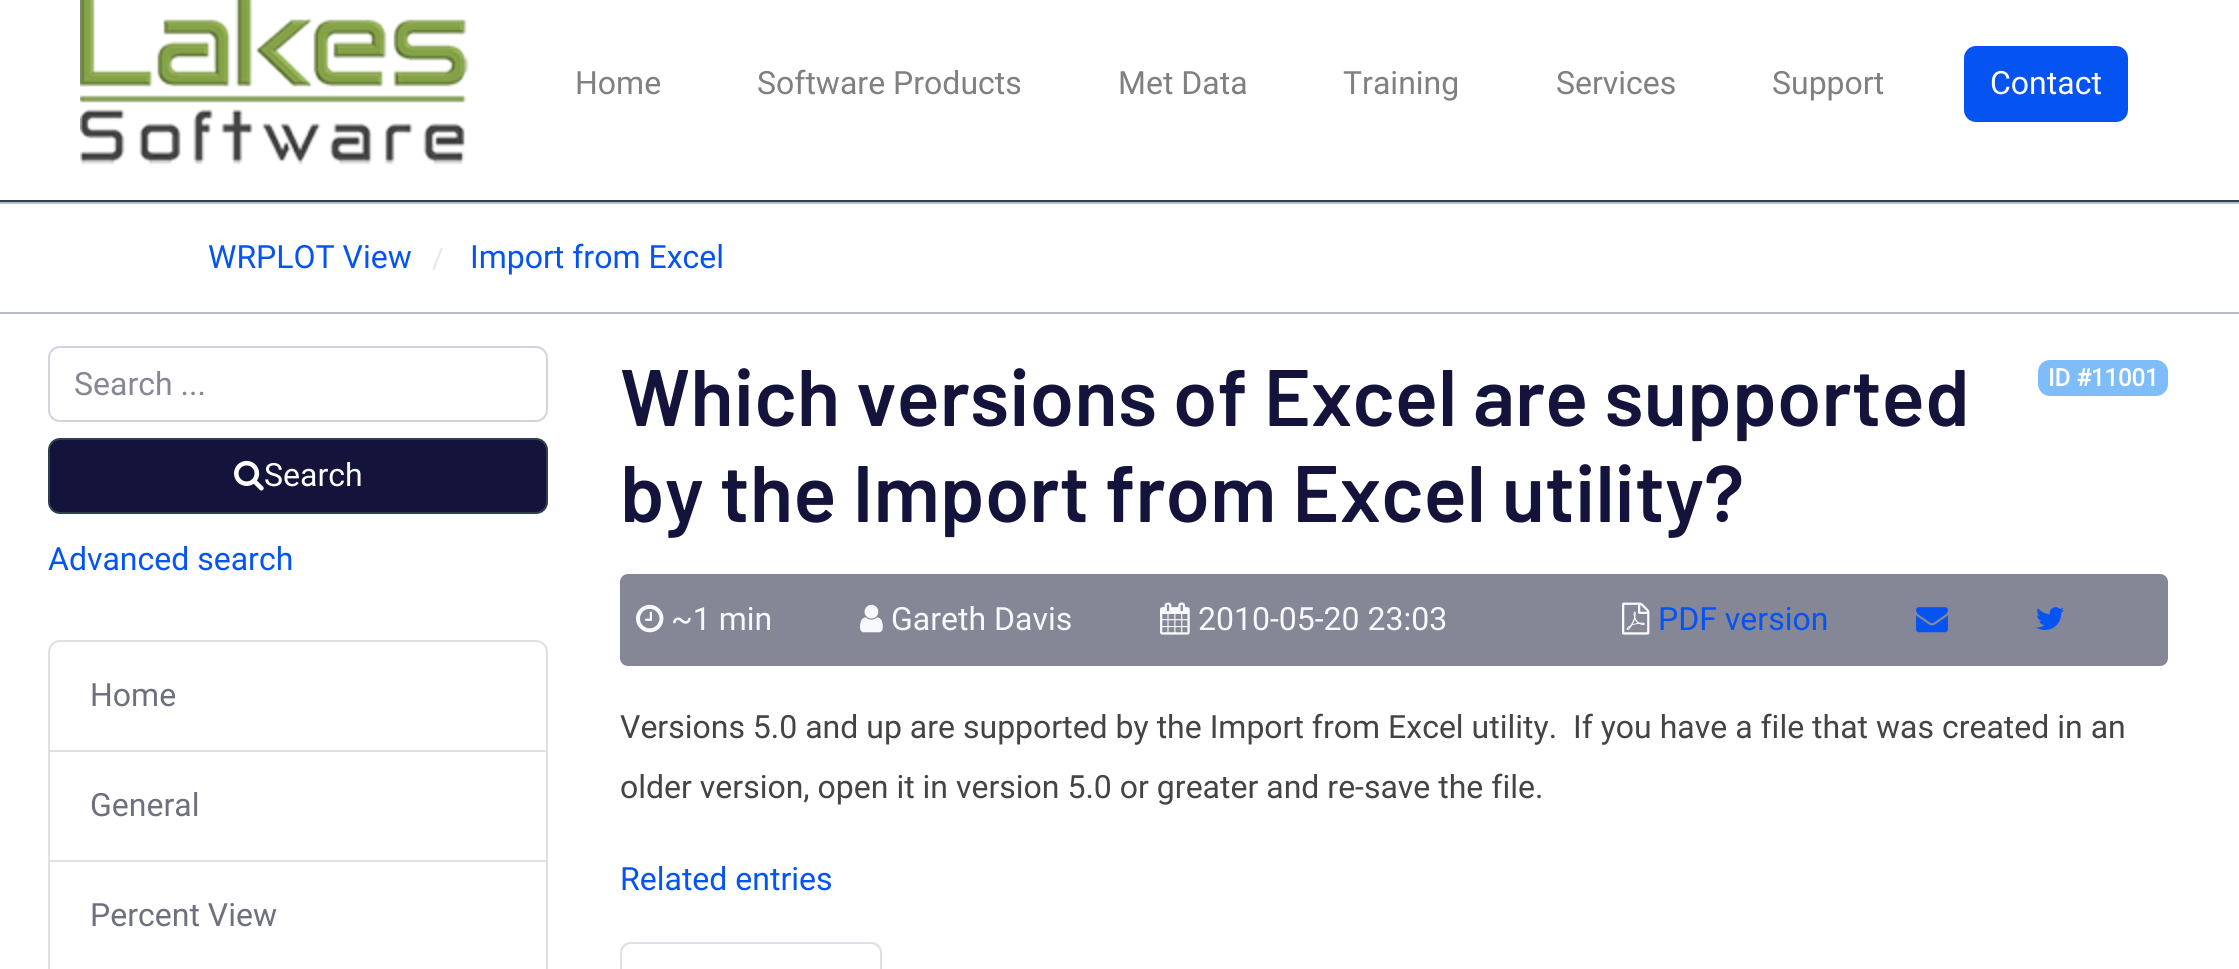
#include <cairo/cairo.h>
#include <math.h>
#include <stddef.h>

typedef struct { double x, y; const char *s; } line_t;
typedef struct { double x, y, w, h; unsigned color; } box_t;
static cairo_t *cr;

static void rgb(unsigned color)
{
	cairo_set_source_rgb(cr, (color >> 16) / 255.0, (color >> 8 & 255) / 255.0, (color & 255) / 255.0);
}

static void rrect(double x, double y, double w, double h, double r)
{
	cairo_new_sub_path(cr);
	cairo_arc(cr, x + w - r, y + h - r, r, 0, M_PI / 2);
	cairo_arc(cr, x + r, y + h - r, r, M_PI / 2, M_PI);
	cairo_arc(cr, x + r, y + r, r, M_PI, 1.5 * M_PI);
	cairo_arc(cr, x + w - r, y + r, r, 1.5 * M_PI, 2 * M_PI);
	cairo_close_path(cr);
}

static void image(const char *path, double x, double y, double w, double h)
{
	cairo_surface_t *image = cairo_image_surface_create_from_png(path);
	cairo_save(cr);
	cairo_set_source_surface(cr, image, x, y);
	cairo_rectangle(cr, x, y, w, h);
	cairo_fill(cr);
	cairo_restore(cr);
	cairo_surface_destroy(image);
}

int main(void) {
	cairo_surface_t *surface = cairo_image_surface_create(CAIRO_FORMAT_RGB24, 2239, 969);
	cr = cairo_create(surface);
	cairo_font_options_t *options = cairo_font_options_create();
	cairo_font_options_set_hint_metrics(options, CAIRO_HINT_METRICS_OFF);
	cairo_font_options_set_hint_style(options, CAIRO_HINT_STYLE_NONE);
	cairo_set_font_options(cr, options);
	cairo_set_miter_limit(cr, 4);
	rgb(0xffffff);
	cairo_paint(cr);
	image("img/1.png", 80, 0, 389, 165);
	rgb(0x0554f2);
	rrect(1964, 46, 164, 76, 12);
	cairo_fill(cr);
	{
		static const box_t items[] = {
			{0, 200, 2239, 2, 0x2f414a},
			{0, 202, 2239, 2, 0xb7b9cc},
			{0, 312, 2239, 2, 0xb7b9cc},
		};
		for (size_t i = 0; i < sizeof items / sizeof *items; i++) {
			rgb(items[i].color);
			cairo_rectangle(cr, items[i].x, items[i].y, items[i].w, items[i].h);
			cairo_fill(cr);
		}
	}
	rrect(49, 347, 498, 74, 11);
	rgb(0xd1d3e2);
	cairo_stroke(cr);
	rgb(0x14133b);
	rrect(49, 439, 498, 74, 11);
	cairo_fill_preserve(cr);
	rgb(0x2f414a);
	cairo_stroke(cr);
	image("img/2.png", 234, 460, 30, 31);
	cairo_new_path(cr);
	cairo_move_to(cr, 60, 641);
	cairo_line_to(cr, 536, 641);
	cairo_curve_to(cr, 542, 641, 547, 646, 547, 652);
	cairo_line_to(cr, 547, 751);
	cairo_line_to(cr, 49, 751);
	cairo_line_to(cr, 49, 652);
	cairo_curve_to(cr, 49, 646, 54, 641, 60, 641);
	cairo_close_path(cr);
	rgb(0xdfdfdf);
	cairo_stroke(cr);
	cairo_new_path(cr);
	cairo_move_to(cr, 548, 752);
	cairo_line_to(cr, 548, 862);
	cairo_line_to(cr, 546, 860);
	cairo_line_to(cr, 546, 752);
	cairo_close_path(cr);
	cairo_fill(cr);
	cairo_set_source_rgba(cr, 0, 0, 0, 0.12);
	cairo_new_path(cr);
	cairo_move_to(cr, 548, 862);
	cairo_line_to(cr, 48, 862);
	cairo_line_to(cr, 50, 860);
	cairo_line_to(cr, 546, 860);
	cairo_close_path(cr);
	cairo_fill(cr);
	cairo_new_path(cr);
	cairo_move_to(cr, 48, 862);
	cairo_line_to(cr, 48, 752);
	cairo_line_to(cr, 50, 752);
	cairo_line_to(cr, 50, 860);
	cairo_close_path(cr);
	cairo_fill(cr);
	rgb(0xdfdfdf);
	cairo_new_path(cr);
	cairo_move_to(cr, 548, 862);
	cairo_line_to(cr, 548, 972);
	cairo_line_to(cr, 546, 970);
	cairo_line_to(cr, 546, 862);
	cairo_close_path(cr);
	cairo_fill(cr);
	cairo_new_path(cr);
	cairo_move_to(cr, 48, 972);
	cairo_line_to(cr, 48, 862);
	cairo_line_to(cr, 50, 862);
	cairo_line_to(cr, 50, 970);
	cairo_close_path(cr);
	cairo_fill(cr);
	rgb(0x7ebcfa);
	rrect(2038, 360, 130, 36, 12);
	cairo_fill(cr);
	rgb(0x858796);
	rrect(620, 574, 1548, 92, 8);
	cairo_fill(cr);
	image("img/3.png", 636, 604, 28, 29);
	image("img/4.png", 860, 604, 23, 29);
	image("img/5.png", 1160, 602, 30, 33);
	image("img/6.png", 1622, 602, 28, 33);
	image("img/7.png", 1916, 607, 32, 26);
	image("img/8.png", 2036, 607, 28, 23);
	rgb(0xdddfeb);
	cairo_new_path(cr);
	cairo_move_to(cr, 631, 942);
	cairo_curve_to(cr, 628, 942, 625, 943, 623, 945);
	cairo_line_to(cr, 625, 947);
	cairo_curve_to(cr, 626, 945, 628, 944, 631, 944);
	cairo_line_to(cr, 871, 944);
	cairo_curve_to(cr, 874, 944, 876, 945, 877, 947);
	cairo_line_to(cr, 879, 945);
	cairo_curve_to(cr, 877, 943, 874, 942, 871, 942);
	cairo_close_path(cr);
	cairo_fill(cr);
	cairo_new_path(cr);
	cairo_move_to(cr, 882, 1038);
	cairo_line_to(cr, 882, 953);
	cairo_curve_to(cr, 882, 950, 881, 947, 879, 945);
	cairo_line_to(cr, 877, 947);
	cairo_curve_to(cr, 879, 948, 880, 950, 880, 953);
	cairo_line_to(cr, 880, 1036);
	cairo_close_path(cr);
	cairo_fill(cr);
	cairo_new_path(cr);
	cairo_move_to(cr, 620, 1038);
	cairo_line_to(cr, 622, 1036);
	cairo_line_to(cr, 622, 953);
	cairo_curve_to(cr, 622, 950, 623, 948, 625, 947);
	cairo_line_to(cr, 623, 945);
	cairo_curve_to(cr, 621, 947, 620, 950, 620, 953);
	cairo_close_path(cr);
	cairo_fill(cr);
	cairo_select_font_face(cr, "Roboto", CAIRO_FONT_SLANT_NORMAL, CAIRO_FONT_WEIGHT_NORMAL);
	cairo_set_font_size(cr, 32);
	rgb(0x808080);
	{
		static const line_t items[] = {
			{575, 94, "Home"},
			{757, 94, "Software Products"},
			{1118, 94, "Met Data"},
			{1343, 94, "Training"},
			{1556, 94, "Services"},
			{1772, 94, "Support"},
		};
		for (size_t i = 0; i < sizeof items / sizeof *items; i++) {
			cairo_move_to(cr, items[i].x, items[i].y);
			cairo_show_text(cr, items[i].s);
		}
	}
	rgb(0xffffff);
	cairo_move_to(cr, 1990, 94);
	cairo_show_text(cr, "Contact");
	rgb(0x0554f2);
	cairo_move_to(cr, 208, 268);
	cairo_show_text(cr, "WRPLOT View");
	cairo_set_font_size(cr, 28);
	rgb(0xe1e8ee);
	cairo_move_to(cr, 432, 268);
	cairo_show_text(cr, "/");
	cairo_set_font_size(cr, 32);
	rgb(0x0554f2);
	cairo_move_to(cr, 470, 268);
	cairo_show_text(cr, "Import from Excel");
	rgb(0x858796);
	cairo_move_to(cr, 74, 395);
	cairo_show_text(cr, "Search ...");
	rgb(0xffffff);
	cairo_move_to(cr, 264, 486);
	cairo_show_text(cr, "Search");
	rgb(0x0554f2);
	cairo_move_to(cr, 48, 570);
	cairo_show_text(cr, "Advanced search");
	rgb(0x6e707e);
	{
		static const line_t items[] = {
			{90, 706, "Home"},
			{90, 816, "General"},
			{90, 926, "Percent View"},
		};
		for (size_t i = 0; i < sizeof items / sizeof *items; i++) {
			cairo_move_to(cr, items[i].x, items[i].y);
			cairo_show_text(cr, items[i].s);
		}
	}
	cairo_select_font_face(cr, "Barlow SemiBold", CAIRO_FONT_SLANT_NORMAL, CAIRO_FONT_WEIGHT_NORMAL);
	cairo_set_font_size(cr, 80);
	rgb(0x14133b);
	cairo_move_to(cr, 620, 426);
	cairo_show_text(cr, "Which versions of Excel are supported");
	cairo_move_to(cr, 620, 522);
	cairo_show_text(cr, "by the Import from Excel utility?");
	cairo_select_font_face(cr, "Roboto", CAIRO_FONT_SLANT_NORMAL, CAIRO_FONT_WEIGHT_BOLD);
	cairo_set_font_size(cr, 24);
	rgb(0xffffff);
	cairo_move_to(cr, 2048, 386);
	cairo_show_text(cr, "ID #11001");
	cairo_select_font_face(cr, "Roboto", CAIRO_FONT_SLANT_NORMAL, CAIRO_FONT_WEIGHT_NORMAL);
	cairo_set_font_size(cr, 32);
	rgb(0xf8f9fc);
	{
		static const line_t items[] = {
			{671, 630, "~1 min"},
			{891, 630, "Gareth Davis"},
			{1198, 630, "2010-05-20 23:03"},
		};
		for (size_t i = 0; i < sizeof items / sizeof *items; i++) {
			cairo_move_to(cr, items[i].x, items[i].y);
			cairo_show_text(cr, items[i].s);
		}
	}
	rgb(0x0554f2);
	cairo_move_to(cr, 1658, 630);
	cairo_show_text(cr, "PDF version");
	rgb(0x444444);
	cairo_move_to(cr, 620, 738);
	cairo_show_text(cr, "Versions 5.0 and up are supported by the Import from Excel utility.  If you have a file that was created in an");
	cairo_move_to(cr, 620, 798);
	cairo_show_text(cr, "older version, open it in version 5.0 or greater and re-save the file.");
	rgb(0x0554f2);
	cairo_move_to(cr, 620, 890);
	cairo_show_text(cr, "Related entries");
	cairo_surface_write_to_png(surface, "page.png");
	cairo_font_options_destroy(options);
	cairo_destroy(cr);
	cairo_surface_destroy(surface);
	return 0;
}
